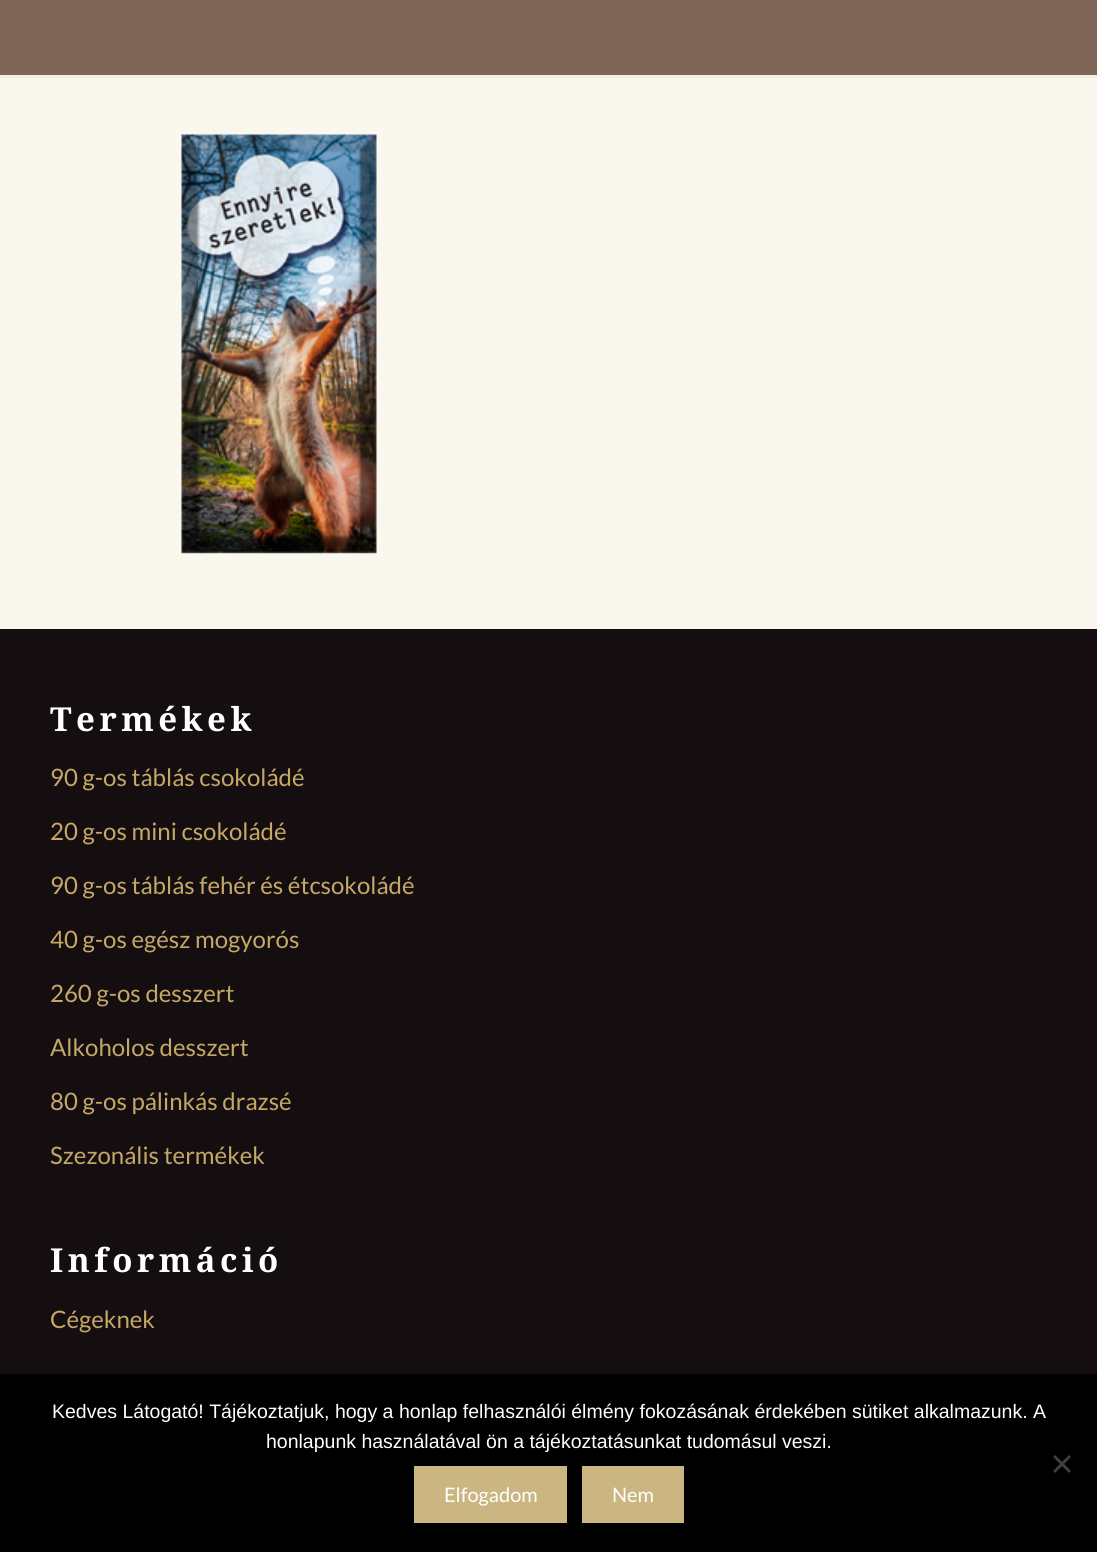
#include <cairo/cairo.h>
#include <math.h>
#include <stddef.h>

typedef struct { double x, y; const char *s; } line_t;
static cairo_t *cr;

static void rgb(unsigned color)
{
	cairo_set_source_rgb(cr, (color >> 16) / 255.0, (color >> 8 & 255) / 255.0, (color & 255) / 255.0);
}

static void tracked(double x, double y, const char *s, double letter, double word)
{
	cairo_move_to(cr, x, y);
	while (*s) {
		char ch[5] = {0};
		int n = 0;
		do ch[n++] = *s++; while ((*s & 0xC0) == 0x80);
		cairo_show_text(cr, ch);
		cairo_rel_move_to(cr, letter + word * (*ch == ' '), 0);
	}
}

static void image(const char *path, double x, double y, double w, double h)
{
	cairo_surface_t *image = cairo_image_surface_create_from_png(path);
	cairo_save(cr);
	cairo_set_source_surface(cr, image, x, y);
	cairo_rectangle(cr, x, y, w, h);
	cairo_fill(cr);
	cairo_restore(cr);
	cairo_surface_destroy(image);
}

int main(void) {
	cairo_surface_t *surface = cairo_image_surface_create(CAIRO_FORMAT_RGB24, 1097, 1552);
	cr = cairo_create(surface);
	cairo_font_options_t *options = cairo_font_options_create();
	cairo_font_options_set_hint_metrics(options, CAIRO_HINT_METRICS_OFF);
	cairo_font_options_set_hint_style(options, CAIRO_HINT_STYLE_NONE);
	cairo_set_font_options(cr, options);
	cairo_set_miter_limit(cr, 4);
	rgb(0xfaf7ef);
	cairo_paint(cr);
	rgb(0x7f6657);
	cairo_rectangle(cr, 0, 0, 1097, 75);
	cairo_fill(cr);
	rgb(0xf0ede5);
	cairo_rectangle(cr, 0, 75, 1097, 3);
	cairo_fill(cr);
	image("img/1.png", 181, 134, 196, 420);
	rgb(0x150e10);
	cairo_rectangle(cr, 0, 629, 1097, 745);
	cairo_fill(cr);
	rgb(0x000000);
	cairo_rectangle(cr, 0, 1374, 1097, 178);
	cairo_fill(cr);
	rgb(0x404040);
	cairo_new_path(cr);
	cairo_move_to(cr, 1069, 1455);
	cairo_line_to(cr, 1071, 1457);
	cairo_line_to(cr, 1055, 1473);
	cairo_line_to(cr, 1053, 1471);
	cairo_close_path(cr);
	cairo_fill(cr);
	cairo_new_path(cr);
	cairo_move_to(cr, 1053, 1457);
	cairo_line_to(cr, 1055, 1455);
	cairo_line_to(cr, 1071, 1471);
	cairo_line_to(cr, 1069, 1473);
	cairo_close_path(cr);
	cairo_fill(cr);
	rgb(0xcbb682);
	cairo_rectangle(cr, 414, 1466, 153, 57);
	cairo_fill(cr);
	cairo_rectangle(cr, 582, 1466, 102, 57);
	cairo_fill(cr);
	cairo_select_font_face(cr, "Noto Serif", CAIRO_FONT_SLANT_NORMAL, CAIRO_FONT_WEIGHT_BOLD);
	cairo_set_font_size(cr, 33);
	rgb(0xffffff);
	tracked(50, 731, "Termékek", 4.5, 0);
	cairo_select_font_face(cr, "Lato", CAIRO_FONT_SLANT_NORMAL, CAIRO_FONT_WEIGHT_NORMAL);
	cairo_set_font_size(cr, 24);
	rgb(0xc6a866);
	{
		static const line_t items[] = {
			{50, 786, "90 g-os táblás csokoládé"},
			{50, 840, "20 g-os mini csokoládé"},
			{50, 894, "90 g-os táblás fehér és étcsokoládé"},
			{50, 948, "40 g-os egész mogyorós"},
			{50, 1002, "260 g-os desszert"},
			{50, 1056, "Alkoholos desszert"},
			{50, 1110, "80 g-os pálinkás drazsé"},
			{50, 1164, "Szezonális termékek"},
		};
		for (size_t i = 0; i < sizeof items / sizeof *items; i++) {
			cairo_move_to(cr, items[i].x, items[i].y);
			cairo_show_text(cr, items[i].s);
		}
	}
	cairo_select_font_face(cr, "Noto Serif", CAIRO_FONT_SLANT_NORMAL, CAIRO_FONT_WEIGHT_BOLD);
	cairo_set_font_size(cr, 33);
	rgb(0xffffff);
	tracked(50, 1272, "Információ", 4.5, 0);
	cairo_select_font_face(cr, "Lato", CAIRO_FONT_SLANT_NORMAL, CAIRO_FONT_WEIGHT_NORMAL);
	cairo_set_font_size(cr, 24);
	rgb(0xc6a866);
	cairo_move_to(cr, 50, 1328);
	cairo_show_text(cr, "Cégeknek");
	cairo_select_font_face(cr, "Liberation Sans", CAIRO_FONT_SLANT_NORMAL, CAIRO_FONT_WEIGHT_NORMAL);
	cairo_set_font_size(cr, 19.5);
	rgb(0xffffff);
	cairo_move_to(cr, 52, 1418);
	cairo_show_text(cr, "Kedves Látogató! Tájékoztatjuk, hogy a honlap felhasználói élmény fokozásának érdekében sütiket alkalmazunk. A");
	cairo_move_to(cr, 266, 1448);
	cairo_show_text(cr, "honlapunk használatával ön a tájékoztatásunkat tudomásul veszi.");
	cairo_select_font_face(cr, "Lato", CAIRO_FONT_SLANT_NORMAL, CAIRO_FONT_WEIGHT_NORMAL);
	cairo_set_font_size(cr, 20);
	cairo_move_to(cr, 444, 1502);
	cairo_show_text(cr, "Elfogadom");
	cairo_move_to(cr, 612, 1502);
	cairo_show_text(cr, "Nem");
	cairo_surface_write_to_png(surface, "page.png");
	cairo_font_options_destroy(options);
	cairo_destroy(cr);
	cairo_surface_destroy(surface);
	return 0;
}
